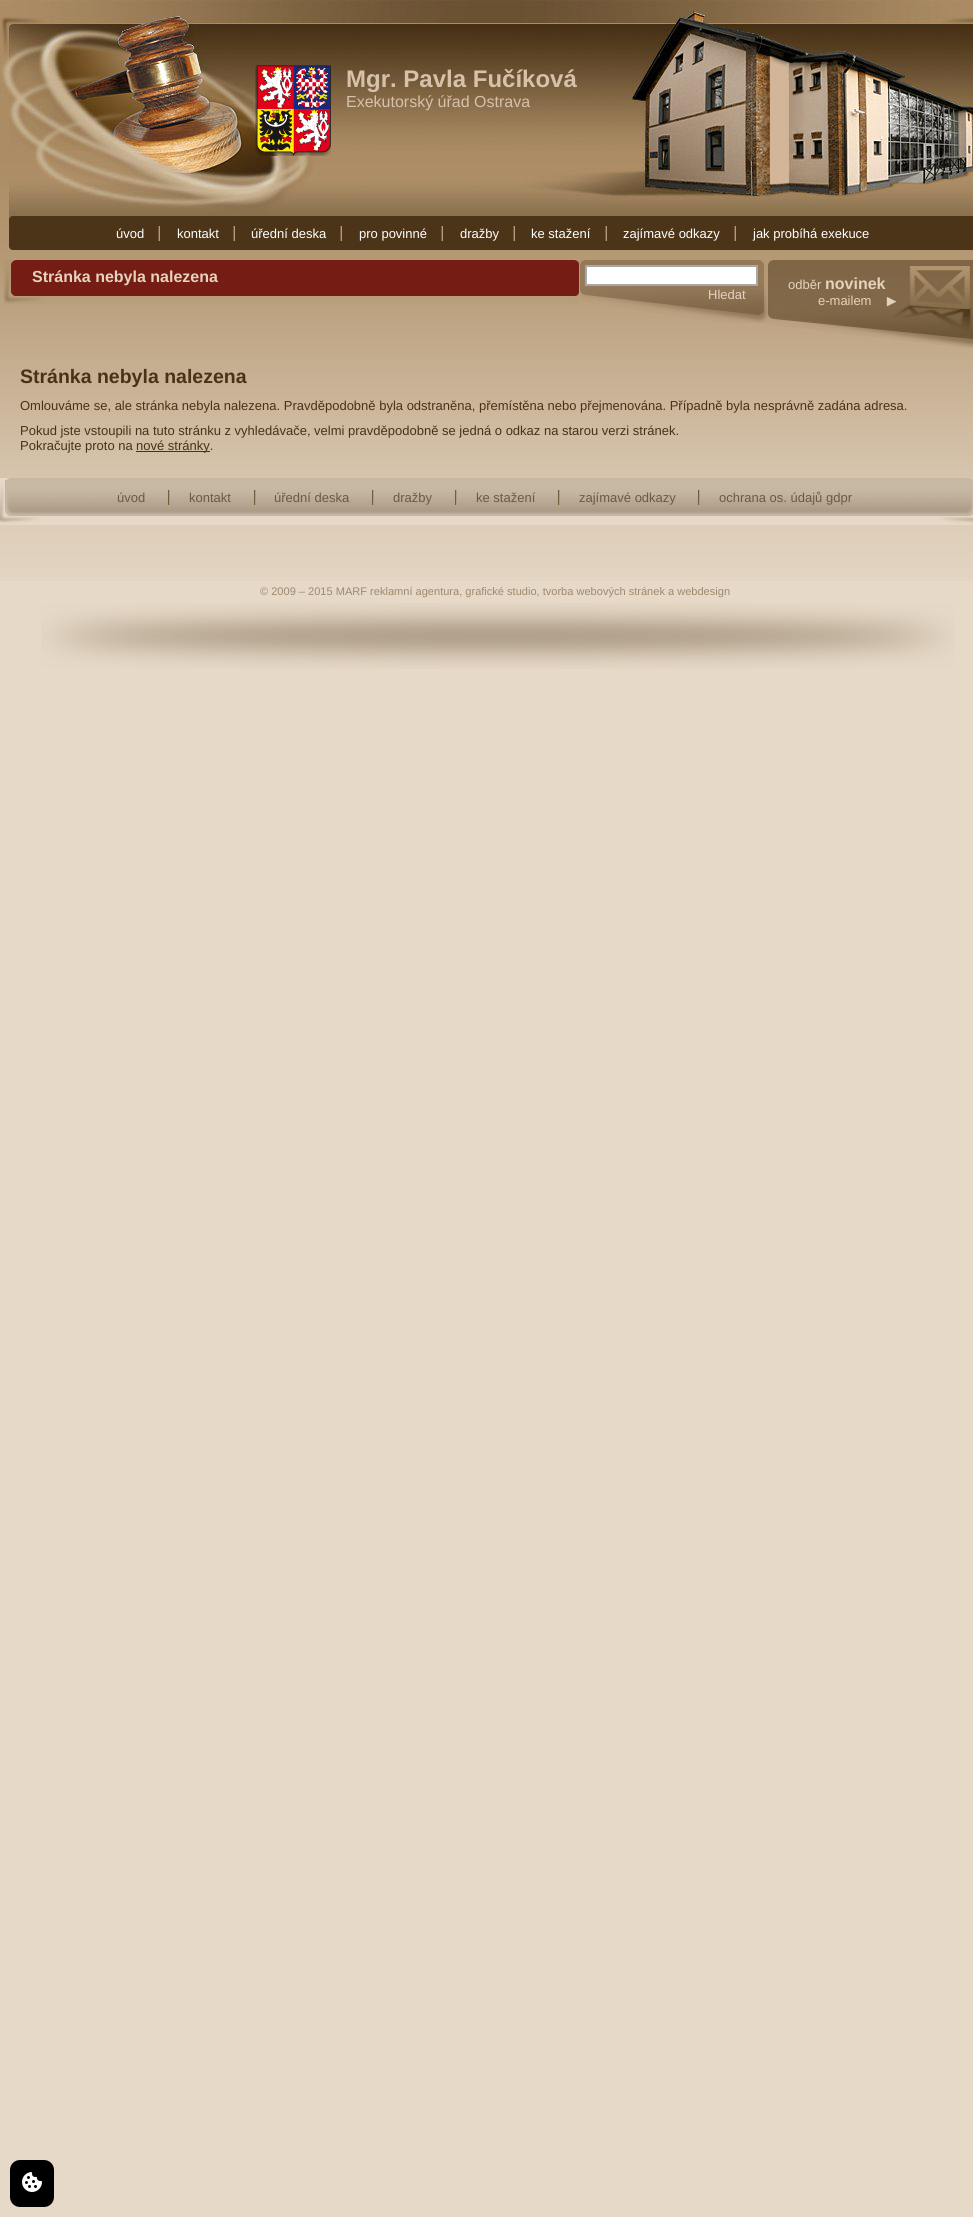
#include <cairo/cairo.h>
#include <math.h>
#include <stddef.h>

typedef struct { double x, y; const char *s; } line_t;
static cairo_t *cr;

static void rgb(unsigned color)
{
	cairo_set_source_rgb(cr, (color >> 16) / 255.0, (color >> 8 & 255) / 255.0, (color & 255) / 255.0);
}

static void rrect(double x, double y, double w, double h, double r)
{
	cairo_new_sub_path(cr);
	cairo_arc(cr, x + w - r, y + h - r, r, 0, M_PI / 2);
	cairo_arc(cr, x + r, y + h - r, r, M_PI / 2, M_PI);
	cairo_arc(cr, x + r, y + r, r, M_PI, 1.5 * M_PI);
	cairo_arc(cr, x + w - r, y + r, r, 1.5 * M_PI, 2 * M_PI);
	cairo_close_path(cr);
}

static void image(const char *path, double x, double y, double w, double h)
{
	cairo_surface_t *image = cairo_image_surface_create_from_png(path);
	cairo_save(cr);
	cairo_set_source_surface(cr, image, x, y);
	cairo_rectangle(cr, x, y, w, h);
	cairo_fill(cr);
	cairo_restore(cr);
	cairo_surface_destroy(image);
}

int main(void) {
	cairo_surface_t *surface = cairo_image_surface_create(CAIRO_FORMAT_RGB24, 973, 2217);
	cr = cairo_create(surface);
	cairo_font_options_t *options = cairo_font_options_create();
	cairo_font_options_set_hint_metrics(options, CAIRO_HINT_METRICS_OFF);
	cairo_font_options_set_hint_style(options, CAIRO_HINT_STYLE_NONE);
	cairo_set_font_options(cr, options);
	cairo_set_miter_limit(cr, 4);
	rgb(0xe6d9c7);
	cairo_paint(cr);
	image("img/1.png", 0, 234, 973, 347);
	image("img/2.png", 0, 0, 973, 234);
	image("img/3.png", 255, 65, 76, 91);
	image("img/4.png", 9, 216, 964, 4);
	rgb(0x4b3418);
	cairo_rectangle(cr, 9, 220, 964, 27);
	cairo_fill(cr);
	image("img/5.png", 158, 226, 2, 15);
	image("img/5.png", 233, 226, 2, 15);
	image("img/5.png", 340, 226, 2, 15);
	image("img/5.png", 441, 226, 2, 15);
	image("img/5.png", 513, 226, 2, 15);
	image("img/5.png", 605, 226, 2, 15);
	image("img/5.png", 734, 226, 2, 15);
	image("img/6.png", 9, 247, 964, 3);
	image("img/7.png", 3, 264, 576, 40);
	image("img/8.png", 3, 260, 576, 4);
	image("img/9.png", 580, 260, 188, 63);
	image("img/10.png", 580, 260, 184, 5);
	rgb(0xffffff);
	cairo_rectangle(cr, 586, 266, 171, 19);
	cairo_fill_preserve(cr);
	rgb(0xa7a6aa);
	cairo_stroke(cr);
	image("img/11.png", 768, 260, 205, 88);
	image("img/12.png", 768, 260, 202, 6);
	image("img/13.png", 886, 297, 11, 10);
	rgb(0x493216);
	cairo_rectangle(cr, 136, 451, 74, 1);
	cairo_fill(cr);
	image("img/14.png", 0, 478, 973, 2);
	image("img/15.png", 0, 480, 973, 45);
	image("img/5.png", 168, 490, 2, 15);
	image("img/5.png", 254, 490, 2, 15);
	image("img/5.png", 372, 490, 2, 15);
	image("img/5.png", 455, 490, 2, 15);
	image("img/5.png", 558, 490, 2, 15);
	image("img/5.png", 698, 490, 2, 15);
	image("img/16.png", 41, 603, 914, 66);
	rgb(0x000000);
	rrect(10, 2160, 44, 47, 10);
	cairo_fill(cr);
	image("img/17.png", 22, 2172, 20, 20);
	cairo_select_font_face(cr, "Liberation Sans", CAIRO_FONT_SLANT_NORMAL, CAIRO_FONT_WEIGHT_BOLD);
	cairo_set_font_size(cr, 24);
	rgb(0xd6c2a8);
	cairo_move_to(cr, 346, 87);
	cairo_show_text(cr, "Mgr. Pavla Fučíková");
	cairo_select_font_face(cr, "Liberation Sans", CAIRO_FONT_SLANT_NORMAL, CAIRO_FONT_WEIGHT_NORMAL);
	cairo_set_font_size(cr, 16);
	cairo_move_to(cr, 346, 107);
	cairo_show_text(cr, "Exekutorský úřad Ostrava");
	cairo_set_font_size(cr, 13);
	rgb(0xffffff);
	{
		static const line_t items[] = {
			{116, 238, "úvod"},
			{177, 238, "kontakt"},
			{251, 238, "úřední deska"},
			{359, 238, "pro povinné"},
			{460, 238, "dražby"},
			{531, 238, "ke stažení"},
			{623, 238, "zajímavé odkazy"},
			{753, 238, "jak probíhá exekuce"},
		};
		for (size_t i = 0; i < sizeof items / sizeof *items; i++) {
			cairo_move_to(cr, items[i].x, items[i].y);
			cairo_show_text(cr, items[i].s);
		}
	}
	cairo_select_font_face(cr, "Liberation Sans", CAIRO_FONT_SLANT_NORMAL, CAIRO_FONT_WEIGHT_BOLD);
	cairo_set_font_size(cr, 16);
	rgb(0xe4d3bd);
	cairo_move_to(cr, 32, 282);
	cairo_show_text(cr, "Stránka nebyla nalezena");
	cairo_select_font_face(cr, "Liberation Sans", CAIRO_FONT_SLANT_NORMAL, CAIRO_FONT_WEIGHT_NORMAL);
	cairo_set_font_size(cr, 13);
	cairo_move_to(cr, 708, 299);
	cairo_show_text(cr, "Hledat");
	cairo_move_to(cr, 788, 289);
	cairo_show_text(cr, "odběr");
	cairo_select_font_face(cr, "Liberation Sans", CAIRO_FONT_SLANT_NORMAL, CAIRO_FONT_WEIGHT_BOLD);
	cairo_set_font_size(cr, 16);
	cairo_move_to(cr, 825, 289);
	cairo_show_text(cr, "novinek");
	cairo_select_font_face(cr, "Liberation Sans", CAIRO_FONT_SLANT_NORMAL, CAIRO_FONT_WEIGHT_NORMAL);
	cairo_set_font_size(cr, 13);
	cairo_move_to(cr, 818, 305);
	cairo_show_text(cr, "e-mailem");
	cairo_select_font_face(cr, "Liberation Sans", CAIRO_FONT_SLANT_NORMAL, CAIRO_FONT_WEIGHT_BOLD);
	cairo_set_font_size(cr, 19.5);
	rgb(0x493216);
	cairo_move_to(cr, 20, 383);
	cairo_show_text(cr, "Stránka nebyla nalezena");
	cairo_select_font_face(cr, "Liberation Sans", CAIRO_FONT_SLANT_NORMAL, CAIRO_FONT_WEIGHT_NORMAL);
	cairo_set_font_size(cr, 13);
	{
		static const line_t items[] = {
			{20, 410, "Omlouváme se, ale stránka nebyla nalezena. Pravděpodobně byla odstraněna, přemístěna nebo přejmenována. Případně byla nesprávně zadána adresa."},
			{20, 435, "Pokud jste vstoupili na tuto stránku z vyhledávače, velmi pravděpodobně se jedná o odkaz na starou verzi stránek."},
			{20, 450, "Pokračujte proto na"},
			{136, 450, "nové stránky."},
		};
		for (size_t i = 0; i < sizeof items / sizeof *items; i++) {
			cairo_move_to(cr, items[i].x, items[i].y);
			cairo_show_text(cr, items[i].s);
		}
	}
	rgb(0x6e5940);
	{
		static const line_t items[] = {
			{117, 502, "úvod"},
			{189, 502, "kontakt"},
			{274, 502, "úřední deska"},
			{393, 502, "dražby"},
			{476, 502, "ke stažení"},
			{579, 502, "zajímavé odkazy"},
			{719, 502, "ochrana os. údajů gdpr"},
		};
		for (size_t i = 0; i < sizeof items / sizeof *items; i++) {
			cairo_move_to(cr, items[i].x, items[i].y);
			cairo_show_text(cr, items[i].s);
		}
	}
	cairo_set_font_size(cr, 11.05);
	rgb(0x9f896e);
	cairo_move_to(cr, 260, 595);
	cairo_show_text(cr, "© 2009 – 2015 MARF reklamní agentura, grafické studio, tvorba webových stránek a webdesign");
	cairo_surface_write_to_png(surface, "page.png");
	cairo_font_options_destroy(options);
	cairo_destroy(cr);
	cairo_surface_destroy(surface);
	return 0;
}
